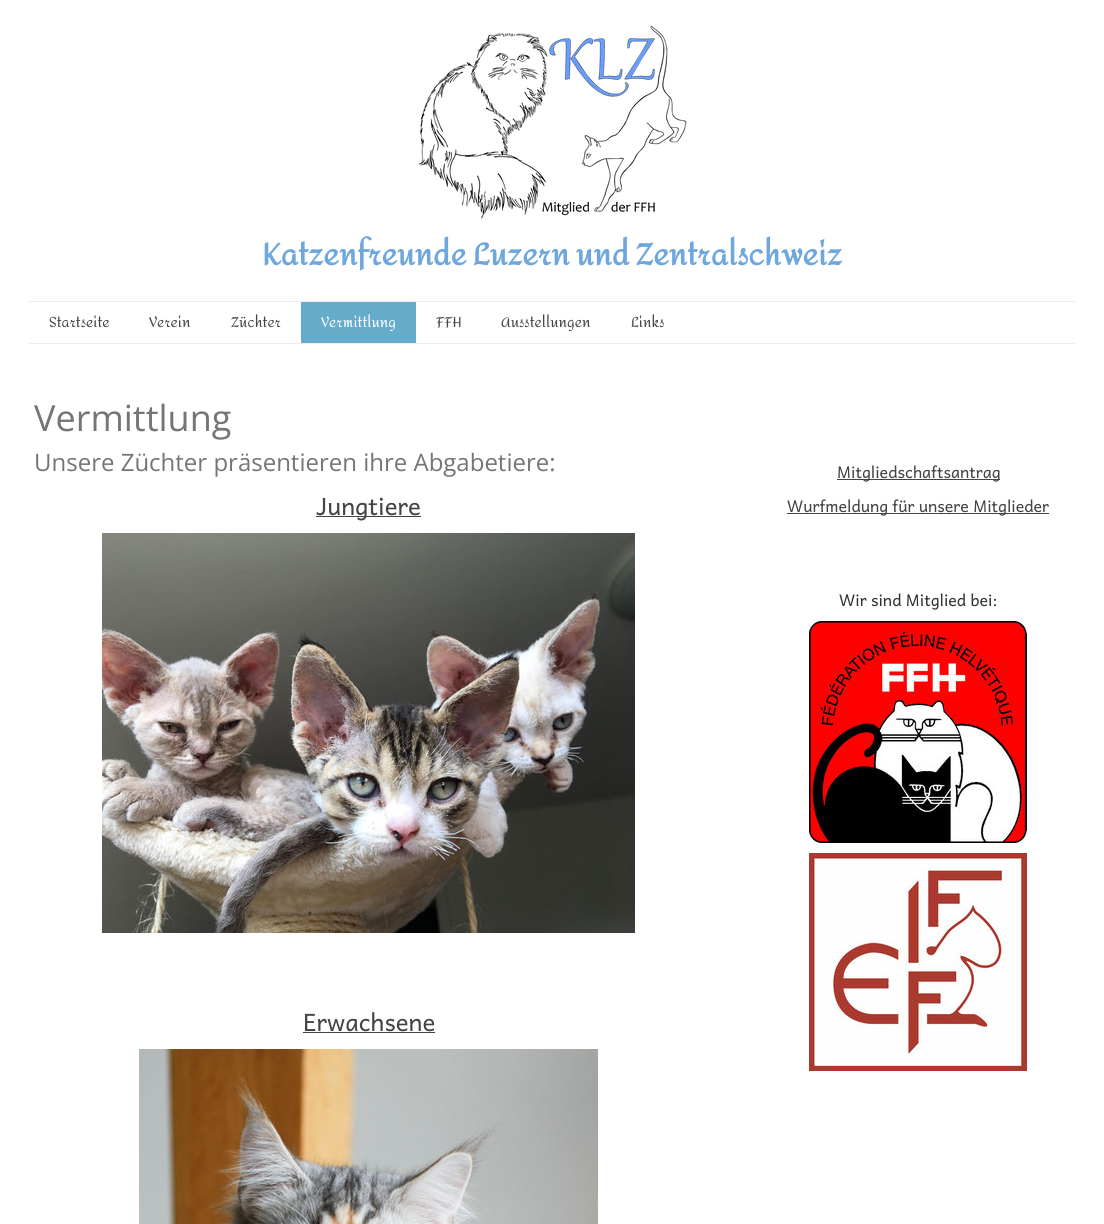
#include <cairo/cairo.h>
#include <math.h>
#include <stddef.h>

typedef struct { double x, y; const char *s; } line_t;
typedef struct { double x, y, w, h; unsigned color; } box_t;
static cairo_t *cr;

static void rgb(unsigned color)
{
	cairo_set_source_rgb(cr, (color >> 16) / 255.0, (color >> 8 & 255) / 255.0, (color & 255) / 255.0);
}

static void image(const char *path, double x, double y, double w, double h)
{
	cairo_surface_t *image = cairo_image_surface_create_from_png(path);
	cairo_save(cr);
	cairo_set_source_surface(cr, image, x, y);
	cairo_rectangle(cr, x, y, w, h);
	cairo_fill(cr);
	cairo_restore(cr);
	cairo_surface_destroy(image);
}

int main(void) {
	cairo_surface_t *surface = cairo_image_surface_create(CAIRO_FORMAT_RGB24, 1104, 1224);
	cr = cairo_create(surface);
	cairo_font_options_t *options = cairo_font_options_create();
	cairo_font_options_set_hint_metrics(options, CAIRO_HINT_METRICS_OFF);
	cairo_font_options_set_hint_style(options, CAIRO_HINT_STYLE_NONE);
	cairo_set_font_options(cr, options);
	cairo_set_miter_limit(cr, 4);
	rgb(0xffffff);
	cairo_paint(cr);
	image("img/1.png", 418, 25, 269, 194);
	{
		static const box_t items[] = {
			{29, 301, 1046, 1, 0xededed},
			{29, 343, 1046, 1, 0xededed},
			{301, 302, 115, 41, 0x64acca},
			{316, 516, 105, 1, 0x444444},
		};
		for (size_t i = 0; i < sizeof items / sizeof *items; i++) {
			rgb(items[i].color);
			cairo_rectangle(cr, items[i].x, items[i].y, items[i].w, items[i].h);
			cairo_fill(cr);
		}
	}
	image("img/2.png", 102, 533, 533, 400);
	cairo_rectangle(cr, 303, 1032, 132, 1);
	cairo_fill(cr);
	image("img/3.png", 139, 1049, 459, 175);
	cairo_rectangle(cr, 837, 479, 163, 1);
	cairo_fill(cr);
	cairo_rectangle(cr, 787, 513, 262, 1);
	cairo_fill(cr);
	image("img/4.png", 809, 621, 218, 222);
	image("img/5.png", 809, 853, 218, 218);
	cairo_select_font_face(cr, "Amita", CAIRO_FONT_SLANT_NORMAL, CAIRO_FONT_WEIGHT_BOLD);
	cairo_set_font_size(cr, 30);
	rgb(0x6da7de);
	cairo_move_to(cr, 262, 265);
	cairo_show_text(cr, "Katzenfreunde Luzern und Zentralschweiz");
	cairo_select_font_face(cr, "Amita", CAIRO_FONT_SLANT_NORMAL, CAIRO_FONT_WEIGHT_NORMAL);
	cairo_set_font_size(cr, 14);
	rgb(0x444444);
	{
		static const line_t items[] = {
			{49, 327, "Startseite"},
			{149, 327, "Verein"},
			{231, 327, "Züchter"},
		};
		for (size_t i = 0; i < sizeof items / sizeof *items; i++) {
			cairo_move_to(cr, items[i].x, items[i].y);
			cairo_show_text(cr, items[i].s);
		}
	}
	rgb(0xffffff);
	cairo_move_to(cr, 321, 327);
	cairo_show_text(cr, "Vermittlung");
	rgb(0x444444);
	{
		static const line_t items[] = {
			{436, 327, "FFH"},
			{501, 327, "Ausstellungen"},
			{631, 327, "Links"},
		};
		for (size_t i = 0; i < sizeof items / sizeof *items; i++) {
			cairo_move_to(cr, items[i].x, items[i].y);
			cairo_show_text(cr, items[i].s);
		}
	}
	cairo_select_font_face(cr, "Open Sans", CAIRO_FONT_SLANT_NORMAL, CAIRO_FONT_WEIGHT_NORMAL);
	cairo_set_font_size(cr, 36);
	rgb(0x757575);
	cairo_move_to(cr, 34, 431);
	cairo_show_text(cr, "Vermittlung");
	cairo_set_font_size(cr, 24);
	cairo_move_to(cr, 34, 471);
	cairo_show_text(cr, "Unsere Züchter präsentieren ihre Abgabetiere:");
	cairo_select_font_face(cr, "Andika", CAIRO_FONT_SLANT_NORMAL, CAIRO_FONT_WEIGHT_NORMAL);
	rgb(0x444444);
	cairo_move_to(cr, 316, 515);
	cairo_show_text(cr, "Jungtiere");
	cairo_move_to(cr, 303, 1031);
	cairo_show_text(cr, "Erwachsene");
	cairo_set_font_size(cr, 16);
	cairo_move_to(cr, 837, 478);
	cairo_show_text(cr, "Mitgliedschaftsantrag");
	cairo_move_to(cr, 787, 512);
	cairo_show_text(cr, "Wurfmeldung für unsere Mitglieder");
	rgb(0x333333);
	cairo_move_to(cr, 839, 606);
	cairo_show_text(cr, "Wir sind Mitglied bei:");
	cairo_surface_write_to_png(surface, "page.png");
	cairo_font_options_destroy(options);
	cairo_destroy(cr);
	cairo_surface_destroy(surface);
	return 0;
}
